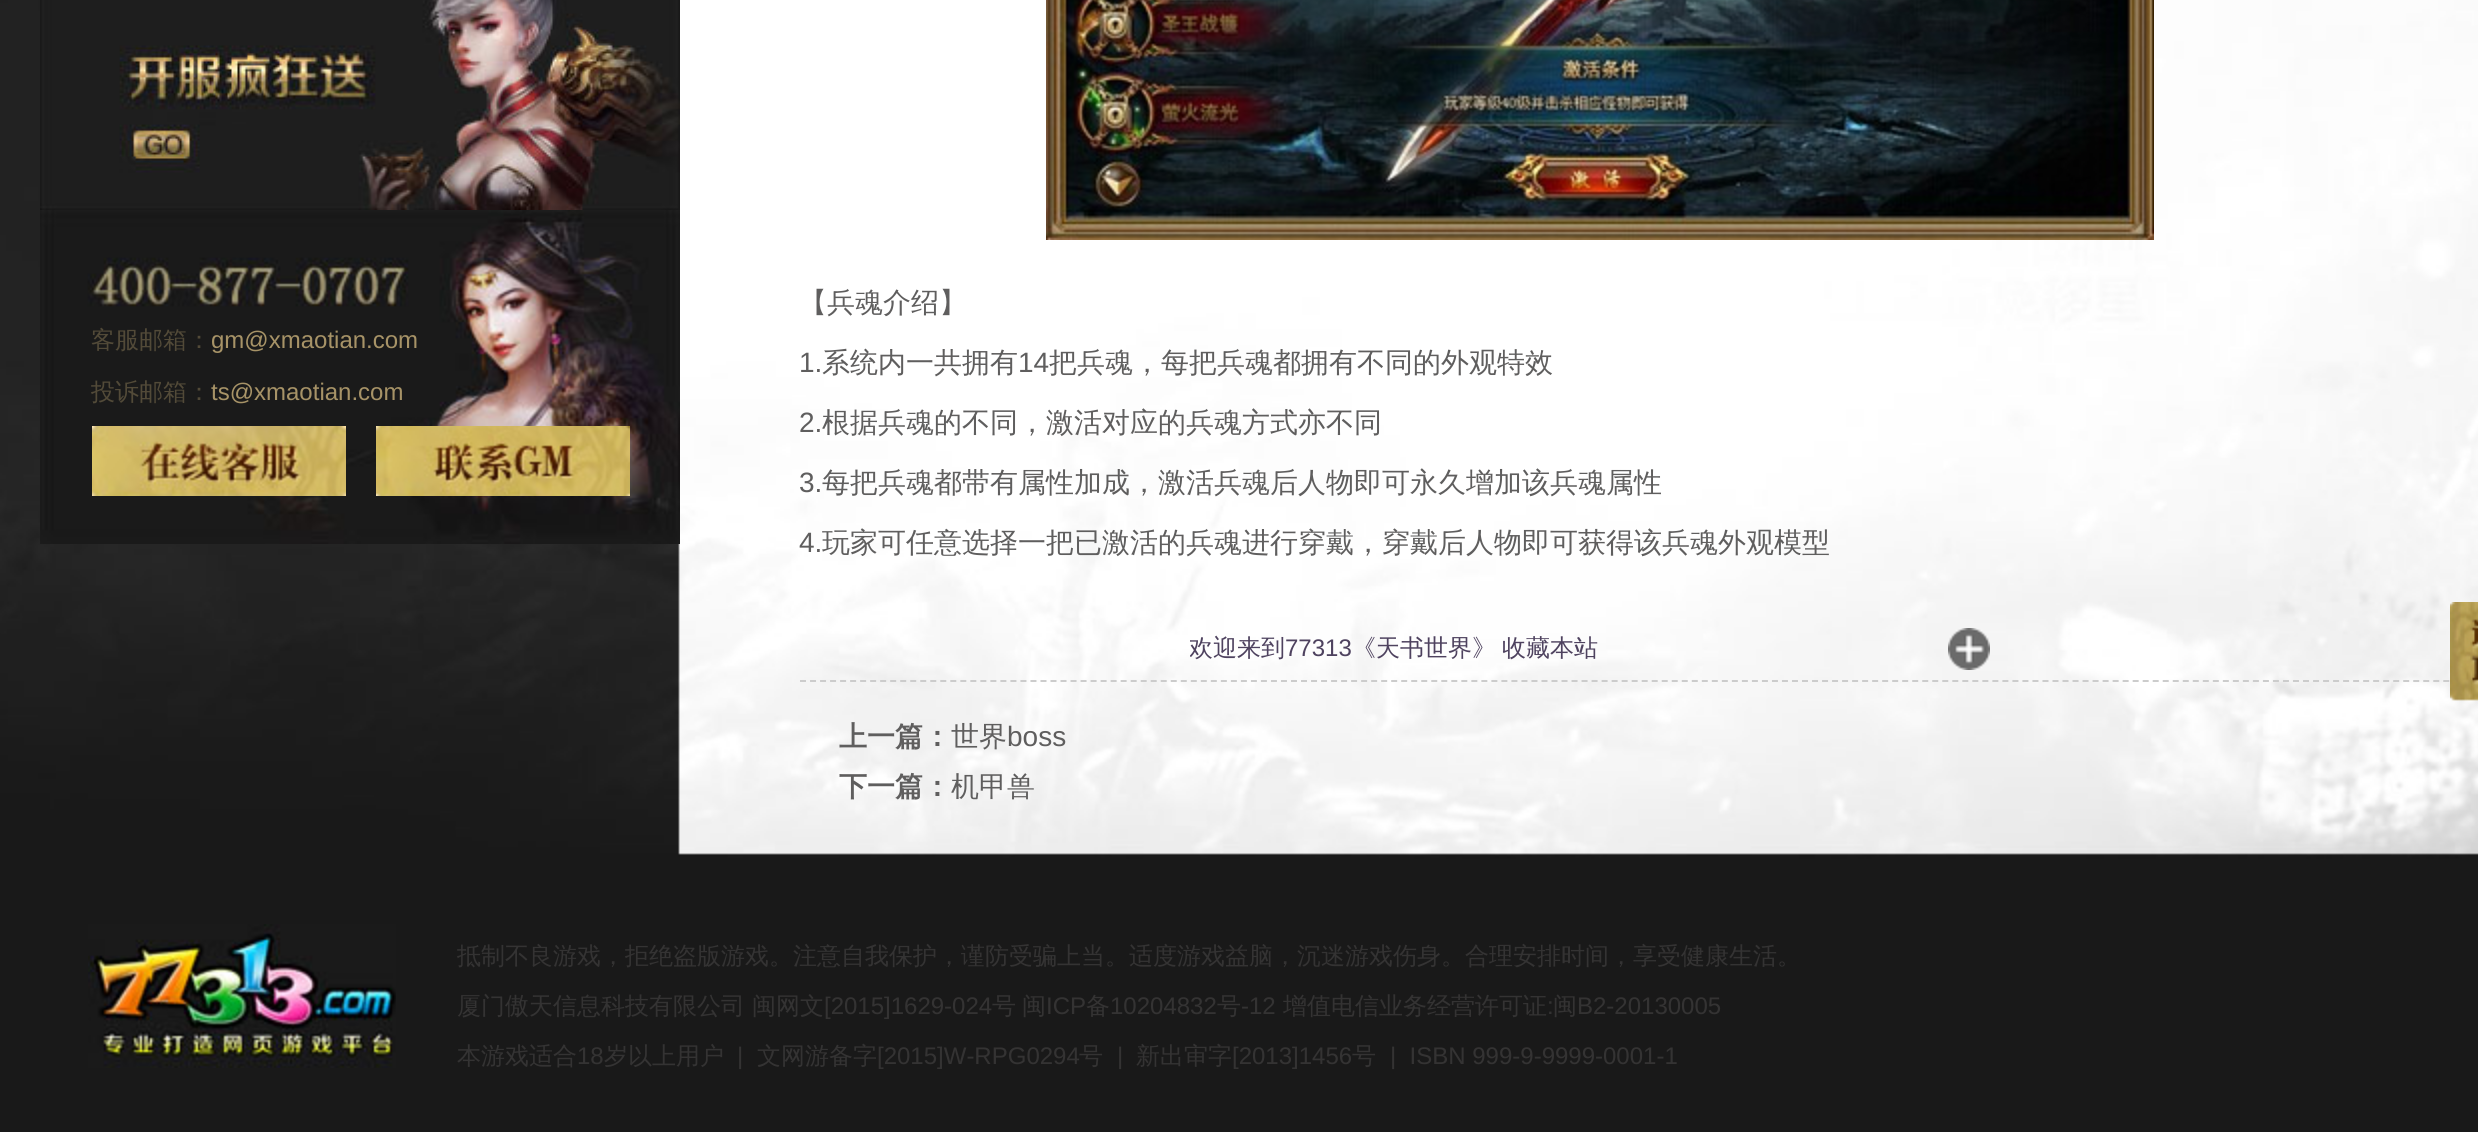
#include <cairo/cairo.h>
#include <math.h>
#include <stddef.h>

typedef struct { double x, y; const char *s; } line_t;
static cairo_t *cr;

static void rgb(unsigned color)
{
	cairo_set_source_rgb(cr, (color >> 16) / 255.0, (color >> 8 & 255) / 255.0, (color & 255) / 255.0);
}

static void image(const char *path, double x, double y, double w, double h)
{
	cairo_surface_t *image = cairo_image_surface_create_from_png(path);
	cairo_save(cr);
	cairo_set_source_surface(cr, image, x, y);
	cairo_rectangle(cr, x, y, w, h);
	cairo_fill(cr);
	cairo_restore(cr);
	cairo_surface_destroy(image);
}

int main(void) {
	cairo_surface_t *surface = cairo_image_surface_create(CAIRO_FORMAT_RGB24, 2478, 1132);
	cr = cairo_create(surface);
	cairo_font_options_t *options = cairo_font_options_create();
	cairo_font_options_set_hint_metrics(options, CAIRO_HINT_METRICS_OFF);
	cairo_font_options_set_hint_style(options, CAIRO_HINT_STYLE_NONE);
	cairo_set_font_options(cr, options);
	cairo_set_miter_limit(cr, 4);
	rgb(0xffffff);
	cairo_paint(cr);
	image("img/1.png", 0, 0, 2478, 1132);
	image("img/2.png", 40, 0, 640, 210);
	image("img/3.png", 40, 210, 640, 334);
	image("img/4.png", 92, 426, 254, 70);
	image("img/5.png", 376, 426, 254, 70);
	image("img/6.png", 1046, 0, 1108, 240);
	image("img/7.png", 1948, 628, 42, 42);
	cairo_new_path(cr);
	cairo_move_to(cr, 800, 681);
	cairo_line_to(cr, 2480, 681);
	rgb(0xcccccc);
	cairo_set_dash(cr, (double[]){6, 4.02}, 2, 0);
	cairo_stroke(cr);
	image("img/8.png", 88, 924, 308, 144);
	image("img/9.png", 2450, 602, 28, 99);
	cairo_select_font_face(cr, "WenQuanYi Zen Hei Medium", CAIRO_FONT_SLANT_NORMAL, CAIRO_FONT_WEIGHT_NORMAL);
	cairo_set_font_size(cr, 24);
	rgb(0x524a38);
	cairo_move_to(cr, 91, 348);
	cairo_show_text(cr, "客服邮箱：");
	cairo_select_font_face(cr, "Liberation Sans", CAIRO_FONT_SLANT_NORMAL, CAIRO_FONT_WEIGHT_NORMAL);
	rgb(0xa79367);
	cairo_move_to(cr, 211, 348);
	cairo_show_text(cr, "gm@xmaotian.com");
	cairo_select_font_face(cr, "WenQuanYi Zen Hei Medium", CAIRO_FONT_SLANT_NORMAL, CAIRO_FONT_WEIGHT_NORMAL);
	rgb(0x524a38);
	cairo_move_to(cr, 91, 400);
	cairo_show_text(cr, "投诉邮箱：");
	cairo_select_font_face(cr, "Liberation Sans", CAIRO_FONT_SLANT_NORMAL, CAIRO_FONT_WEIGHT_NORMAL);
	rgb(0xa79367);
	cairo_move_to(cr, 211, 400);
	cairo_show_text(cr, "ts@xmaotian.com");
	cairo_select_font_face(cr, "WenQuanYi Zen Hei Medium", CAIRO_FONT_SLANT_NORMAL, CAIRO_FONT_WEIGHT_NORMAL);
	cairo_set_font_size(cr, 28);
	rgb(0x5f5e5e);
	cairo_move_to(cr, 799, 312);
	cairo_show_text(cr, "【兵魂介绍】");
	cairo_select_font_face(cr, "Liberation Sans", CAIRO_FONT_SLANT_NORMAL, CAIRO_FONT_WEIGHT_NORMAL);
	cairo_move_to(cr, 799, 372);
	cairo_show_text(cr, "1.");
	cairo_select_font_face(cr, "WenQuanYi Zen Hei Medium", CAIRO_FONT_SLANT_NORMAL, CAIRO_FONT_WEIGHT_NORMAL);
	cairo_move_to(cr, 822, 372);
	cairo_show_text(cr, "系统内一共拥有");
	cairo_select_font_face(cr, "Liberation Sans", CAIRO_FONT_SLANT_NORMAL, CAIRO_FONT_WEIGHT_NORMAL);
	cairo_move_to(cr, 1018, 372);
	cairo_show_text(cr, "14");
	cairo_select_font_face(cr, "WenQuanYi Zen Hei Medium", CAIRO_FONT_SLANT_NORMAL, CAIRO_FONT_WEIGHT_NORMAL);
	cairo_move_to(cr, 1049, 372);
	cairo_show_text(cr, "把兵魂，每把兵魂都拥有不同的外观特效");
	cairo_select_font_face(cr, "Liberation Sans", CAIRO_FONT_SLANT_NORMAL, CAIRO_FONT_WEIGHT_NORMAL);
	cairo_move_to(cr, 799, 432);
	cairo_show_text(cr, "2.");
	cairo_select_font_face(cr, "WenQuanYi Zen Hei Medium", CAIRO_FONT_SLANT_NORMAL, CAIRO_FONT_WEIGHT_NORMAL);
	cairo_move_to(cr, 822, 432);
	cairo_show_text(cr, "根据兵魂的不同，激活对应的兵魂方式亦不同");
	cairo_select_font_face(cr, "Liberation Sans", CAIRO_FONT_SLANT_NORMAL, CAIRO_FONT_WEIGHT_NORMAL);
	cairo_move_to(cr, 799, 492);
	cairo_show_text(cr, "3.");
	cairo_select_font_face(cr, "WenQuanYi Zen Hei Medium", CAIRO_FONT_SLANT_NORMAL, CAIRO_FONT_WEIGHT_NORMAL);
	cairo_move_to(cr, 822, 492);
	cairo_show_text(cr, "每把兵魂都带有属性加成，激活兵魂后人物即可永久增加该兵魂属性");
	cairo_select_font_face(cr, "Liberation Sans", CAIRO_FONT_SLANT_NORMAL, CAIRO_FONT_WEIGHT_NORMAL);
	cairo_move_to(cr, 799, 552);
	cairo_show_text(cr, "4.");
	cairo_select_font_face(cr, "WenQuanYi Zen Hei Medium", CAIRO_FONT_SLANT_NORMAL, CAIRO_FONT_WEIGHT_NORMAL);
	cairo_move_to(cr, 822, 552);
	cairo_show_text(cr, "玩家可任意选择一把已激活的兵魂进行穿戴，穿戴后人物即可获得该兵魂外观模型");
	cairo_save(cr);
	cairo_rectangle(cr, 1190, 628, 1210, 44);
	cairo_clip(cr);
	cairo_set_font_size(cr, 24);
	rgb(0x4e425f);
	cairo_move_to(cr, 1189, 656);
	cairo_show_text(cr, "欢迎来到");
	cairo_restore(cr);
	cairo_select_font_face(cr, "Liberation Sans", CAIRO_FONT_SLANT_NORMAL, CAIRO_FONT_WEIGHT_NORMAL);
	cairo_set_font_size(cr, 24);
	rgb(0x4e425f);
	cairo_move_to(cr, 1285, 656);
	cairo_show_text(cr, "77313");
	cairo_select_font_face(cr, "WenQuanYi Zen Hei Medium", CAIRO_FONT_SLANT_NORMAL, CAIRO_FONT_WEIGHT_NORMAL);
	cairo_move_to(cr, 1352, 656);
	cairo_show_text(cr, "《天书世界》");
	cairo_move_to(cr, 1502, 656);
	cairo_show_text(cr, "收藏本站");
	cairo_select_font_face(cr, "WenQuanYi Zen Hei", CAIRO_FONT_SLANT_NORMAL, CAIRO_FONT_WEIGHT_BOLD);
	cairo_set_font_size(cr, 28);
	rgb(0x5f5e5e);
	cairo_move_to(cr, 839, 746);
	cairo_show_text(cr, "上一篇：");
	cairo_select_font_face(cr, "WenQuanYi Zen Hei Medium", CAIRO_FONT_SLANT_NORMAL, CAIRO_FONT_WEIGHT_NORMAL);
	cairo_move_to(cr, 951, 746);
	cairo_show_text(cr, "世界");
	cairo_select_font_face(cr, "Liberation Sans", CAIRO_FONT_SLANT_NORMAL, CAIRO_FONT_WEIGHT_NORMAL);
	cairo_move_to(cr, 1007, 746);
	cairo_show_text(cr, "boss");
	cairo_select_font_face(cr, "WenQuanYi Zen Hei", CAIRO_FONT_SLANT_NORMAL, CAIRO_FONT_WEIGHT_BOLD);
	cairo_move_to(cr, 839, 796);
	cairo_show_text(cr, "下一篇：");
	cairo_select_font_face(cr, "WenQuanYi Zen Hei Medium", CAIRO_FONT_SLANT_NORMAL, CAIRO_FONT_WEIGHT_NORMAL);
	cairo_move_to(cr, 951, 796);
	cairo_show_text(cr, "机甲兽");
	cairo_set_font_size(cr, 24);
	rgb(0x343333);
	{
		static const line_t items[] = {
			{457, 964, "抵制不良游戏，拒绝盗版游戏。注意自我保护，谨防受骗上当。适度游戏益脑，沉迷游戏伤身。合理安排时间，享受健康生活。"},
			{457, 1014, "厦门傲天信息科技有限公司"},
			{752, 1014, "闽网文"},
		};
		for (size_t i = 0; i < sizeof items / sizeof *items; i++) {
			cairo_move_to(cr, items[i].x, items[i].y);
			cairo_show_text(cr, items[i].s);
		}
	}
	cairo_select_font_face(cr, "Liberation Sans", CAIRO_FONT_SLANT_NORMAL, CAIRO_FONT_WEIGHT_NORMAL);
	cairo_move_to(cr, 824, 1014);
	cairo_show_text(cr, "[2015]1629-024");
	cairo_select_font_face(cr, "WenQuanYi Zen Hei Medium", CAIRO_FONT_SLANT_NORMAL, CAIRO_FONT_WEIGHT_NORMAL);
	cairo_move_to(cr, 992, 1014);
	cairo_show_text(cr, "号");
	cairo_move_to(cr, 1022, 1014);
	cairo_show_text(cr, "闽");
	cairo_select_font_face(cr, "Liberation Sans", CAIRO_FONT_SLANT_NORMAL, CAIRO_FONT_WEIGHT_NORMAL);
	cairo_move_to(cr, 1046, 1014);
	cairo_show_text(cr, "ICP");
	cairo_select_font_face(cr, "WenQuanYi Zen Hei Medium", CAIRO_FONT_SLANT_NORMAL, CAIRO_FONT_WEIGHT_NORMAL);
	cairo_move_to(cr, 1086, 1014);
	cairo_show_text(cr, "备");
	cairo_select_font_face(cr, "Liberation Sans", CAIRO_FONT_SLANT_NORMAL, CAIRO_FONT_WEIGHT_NORMAL);
	cairo_move_to(cr, 1110, 1014);
	cairo_show_text(cr, "10204832");
	cairo_select_font_face(cr, "WenQuanYi Zen Hei Medium", CAIRO_FONT_SLANT_NORMAL, CAIRO_FONT_WEIGHT_NORMAL);
	cairo_move_to(cr, 1217, 1014);
	cairo_show_text(cr, "号");
	cairo_select_font_face(cr, "Liberation Sans", CAIRO_FONT_SLANT_NORMAL, CAIRO_FONT_WEIGHT_NORMAL);
	cairo_move_to(cr, 1241, 1014);
	cairo_show_text(cr, "-12");
	cairo_select_font_face(cr, "WenQuanYi Zen Hei Medium", CAIRO_FONT_SLANT_NORMAL, CAIRO_FONT_WEIGHT_NORMAL);
	cairo_move_to(cr, 1283, 1014);
	cairo_show_text(cr, "增值电信业务经营许可证");
	cairo_select_font_face(cr, "Liberation Sans", CAIRO_FONT_SLANT_NORMAL, CAIRO_FONT_WEIGHT_NORMAL);
	cairo_move_to(cr, 1547, 1014);
	cairo_show_text(cr, ":");
	cairo_select_font_face(cr, "WenQuanYi Zen Hei Medium", CAIRO_FONT_SLANT_NORMAL, CAIRO_FONT_WEIGHT_NORMAL);
	cairo_move_to(cr, 1553, 1014);
	cairo_show_text(cr, "闽");
	cairo_select_font_face(cr, "Liberation Sans", CAIRO_FONT_SLANT_NORMAL, CAIRO_FONT_WEIGHT_NORMAL);
	cairo_move_to(cr, 1577, 1014);
	cairo_show_text(cr, "B2-20130005");
	cairo_select_font_face(cr, "WenQuanYi Zen Hei Medium", CAIRO_FONT_SLANT_NORMAL, CAIRO_FONT_WEIGHT_NORMAL);
	cairo_move_to(cr, 457, 1064);
	cairo_show_text(cr, "本游戏适合");
	cairo_select_font_face(cr, "Liberation Sans", CAIRO_FONT_SLANT_NORMAL, CAIRO_FONT_WEIGHT_NORMAL);
	cairo_move_to(cr, 577, 1064);
	cairo_show_text(cr, "18");
	cairo_select_font_face(cr, "WenQuanYi Zen Hei Medium", CAIRO_FONT_SLANT_NORMAL, CAIRO_FONT_WEIGHT_NORMAL);
	cairo_move_to(cr, 604, 1064);
	cairo_show_text(cr, "岁以上用户");
	cairo_select_font_face(cr, "Liberation Sans", CAIRO_FONT_SLANT_NORMAL, CAIRO_FONT_WEIGHT_NORMAL);
	cairo_move_to(cr, 737, 1064);
	cairo_show_text(cr, "|");
	cairo_select_font_face(cr, "WenQuanYi Zen Hei Medium", CAIRO_FONT_SLANT_NORMAL, CAIRO_FONT_WEIGHT_NORMAL);
	cairo_move_to(cr, 757, 1064);
	cairo_show_text(cr, "文网游备字");
	cairo_select_font_face(cr, "Liberation Sans", CAIRO_FONT_SLANT_NORMAL, CAIRO_FONT_WEIGHT_NORMAL);
	cairo_move_to(cr, 877, 1064);
	cairo_show_text(cr, "[2015]W-RPG0294");
	cairo_select_font_face(cr, "WenQuanYi Zen Hei Medium", CAIRO_FONT_SLANT_NORMAL, CAIRO_FONT_WEIGHT_NORMAL);
	cairo_move_to(cr, 1079, 1064);
	cairo_show_text(cr, "号");
	cairo_select_font_face(cr, "Liberation Sans", CAIRO_FONT_SLANT_NORMAL, CAIRO_FONT_WEIGHT_NORMAL);
	cairo_move_to(cr, 1117, 1064);
	cairo_show_text(cr, "|");
	cairo_select_font_face(cr, "WenQuanYi Zen Hei Medium", CAIRO_FONT_SLANT_NORMAL, CAIRO_FONT_WEIGHT_NORMAL);
	cairo_move_to(cr, 1136, 1064);
	cairo_show_text(cr, "新出审字");
	cairo_select_font_face(cr, "Liberation Sans", CAIRO_FONT_SLANT_NORMAL, CAIRO_FONT_WEIGHT_NORMAL);
	cairo_move_to(cr, 1232, 1064);
	cairo_show_text(cr, "[2013]1456");
	cairo_select_font_face(cr, "WenQuanYi Zen Hei Medium", CAIRO_FONT_SLANT_NORMAL, CAIRO_FONT_WEIGHT_NORMAL);
	cairo_move_to(cr, 1352, 1064);
	cairo_show_text(cr, "号");
	cairo_select_font_face(cr, "Liberation Sans", CAIRO_FONT_SLANT_NORMAL, CAIRO_FONT_WEIGHT_NORMAL);
	cairo_move_to(cr, 1390, 1064);
	cairo_show_text(cr, "|  ISBN 999-9-9999-0001-1");
	cairo_surface_write_to_png(surface, "page.png");
	cairo_font_options_destroy(options);
	cairo_destroy(cr);
	cairo_surface_destroy(surface);
	return 0;
}
